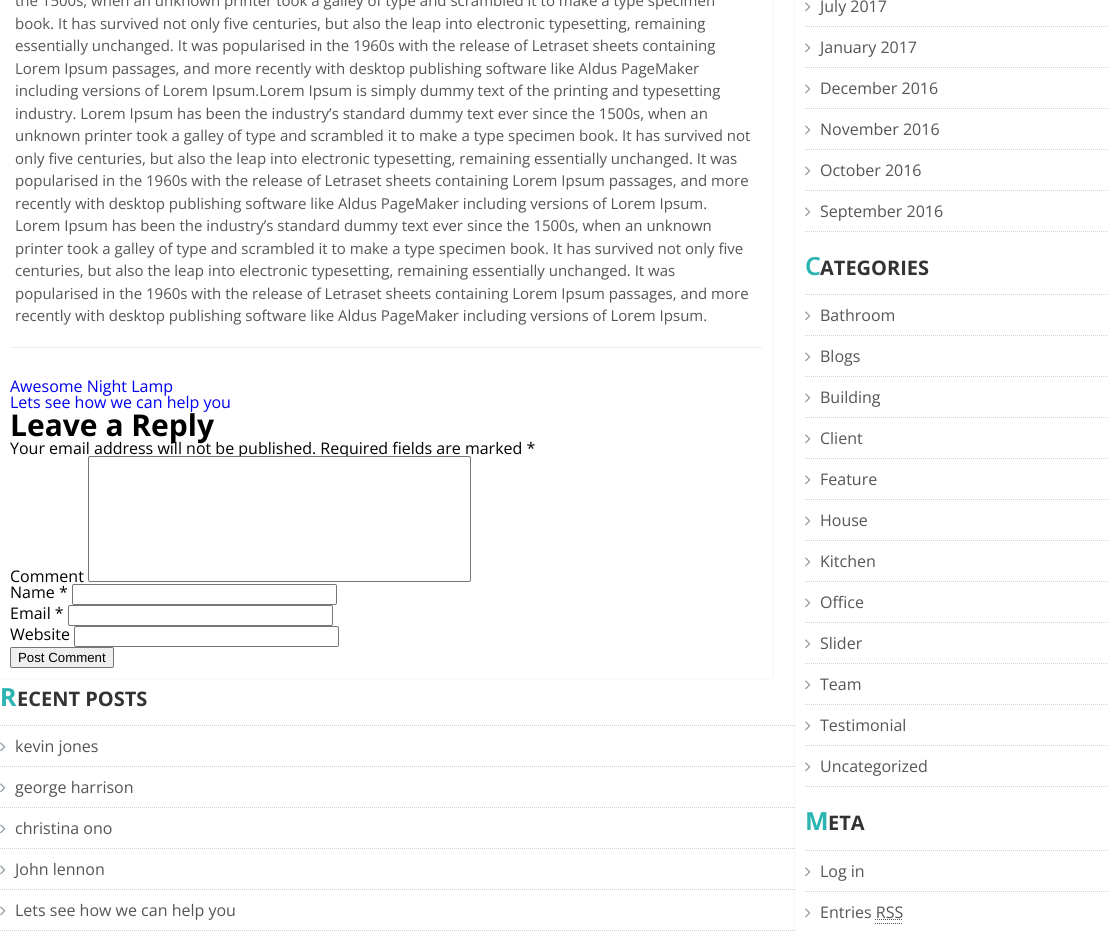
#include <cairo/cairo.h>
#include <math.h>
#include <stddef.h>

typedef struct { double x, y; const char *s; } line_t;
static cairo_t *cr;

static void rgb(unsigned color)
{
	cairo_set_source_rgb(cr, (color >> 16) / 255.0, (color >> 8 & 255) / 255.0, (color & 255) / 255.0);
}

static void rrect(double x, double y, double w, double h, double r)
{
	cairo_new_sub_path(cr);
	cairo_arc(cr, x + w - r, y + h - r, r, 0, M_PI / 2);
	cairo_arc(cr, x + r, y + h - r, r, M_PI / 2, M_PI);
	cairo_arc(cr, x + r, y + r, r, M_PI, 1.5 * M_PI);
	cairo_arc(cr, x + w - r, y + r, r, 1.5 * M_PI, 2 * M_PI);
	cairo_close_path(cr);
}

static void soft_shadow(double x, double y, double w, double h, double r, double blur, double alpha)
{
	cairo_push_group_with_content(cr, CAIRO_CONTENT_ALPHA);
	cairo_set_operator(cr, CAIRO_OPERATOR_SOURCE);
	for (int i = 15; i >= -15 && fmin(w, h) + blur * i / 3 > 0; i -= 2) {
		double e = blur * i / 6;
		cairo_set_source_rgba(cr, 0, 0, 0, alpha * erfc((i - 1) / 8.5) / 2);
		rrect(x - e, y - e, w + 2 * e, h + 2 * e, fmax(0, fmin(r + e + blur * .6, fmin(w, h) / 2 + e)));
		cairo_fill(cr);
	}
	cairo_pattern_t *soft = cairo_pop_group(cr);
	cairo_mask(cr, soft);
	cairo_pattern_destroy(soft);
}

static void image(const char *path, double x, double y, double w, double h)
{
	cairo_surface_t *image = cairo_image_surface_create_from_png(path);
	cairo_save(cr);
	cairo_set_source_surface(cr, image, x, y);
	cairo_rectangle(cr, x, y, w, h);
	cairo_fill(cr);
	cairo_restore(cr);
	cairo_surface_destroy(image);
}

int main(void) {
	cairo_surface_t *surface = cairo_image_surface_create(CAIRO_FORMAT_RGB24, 1119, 932);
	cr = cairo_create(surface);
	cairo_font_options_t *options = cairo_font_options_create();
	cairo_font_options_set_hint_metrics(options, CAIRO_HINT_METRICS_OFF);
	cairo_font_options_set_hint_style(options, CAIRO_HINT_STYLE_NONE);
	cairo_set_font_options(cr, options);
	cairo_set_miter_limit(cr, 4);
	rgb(0xffffff);
	cairo_paint(cr);
	cairo_save(cr);
	cairo_set_fill_rule(cr, CAIRO_FILL_RULE_EVEN_ODD);
	cairo_new_path(cr);
	cairo_move_to(cr, 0, 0);
	cairo_line_to(cr, 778, 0);
	cairo_line_to(cr, 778, 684);
	cairo_line_to(cr, 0, 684);
	cairo_close_path(cr);
	cairo_move_to(cr, 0, -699);
	cairo_line_to(cr, 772, -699);
	cairo_line_to(cr, 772, 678);
	cairo_line_to(cr, 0, 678);
	cairo_close_path(cr);
	cairo_clip(cr);
	rgb(0x55afcc);
	soft_shadow(0, -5, 772, 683, 0, 1.5, 0.2);
	cairo_restore(cr);
	rgb(0xeeeeee);
	cairo_rectangle(cr, 10, 347, 752, 1);
	cairo_fill(cr);
	rrect(72.5, 584.5, 264, 20, 1.5);
	rgb(0x767676);
	cairo_set_line_width(cr, 1);
	cairo_stroke(cr);
	rrect(68.5, 605.5, 264, 20, 1.5);
	cairo_stroke(cr);
	rrect(74.5, 626.5, 264, 20, 1.5);
	cairo_stroke(cr);
	rgb(0xefefef);
	rrect(10.5, 647.5, 103, 20, 1.5);
	cairo_fill_preserve(cr);
	rgb(0x767676);
	cairo_stroke(cr);
	cairo_new_path(cr);
	cairo_move_to(cr, 0, 725.5);
	cairo_line_to(cr, 1119, 725.5);
	rgb(0xd0d0d0);
	cairo_set_dash(cr, (double[]){1, 1}, 2, 0);
	cairo_stroke(cr);
	cairo_new_path(cr);
	cairo_move_to(cr, 0, 766.5);
	cairo_line_to(cr, 1119, 766.5);
	cairo_stroke(cr);
	cairo_new_path(cr);
	cairo_move_to(cr, 0, 807.5);
	cairo_line_to(cr, 1119, 807.5);
	cairo_stroke(cr);
	cairo_new_path(cr);
	cairo_move_to(cr, 0, 848.5);
	cairo_line_to(cr, 1119, 848.5);
	cairo_stroke(cr);
	cairo_new_path(cr);
	cairo_move_to(cr, 0, 889.5);
	cairo_line_to(cr, 1119, 889.5);
	cairo_stroke(cr);
	cairo_new_path(cr);
	cairo_move_to(cr, 0, 930.5);
	cairo_line_to(cr, 1119, 930.5);
	cairo_stroke(cr);
	rgb(0x55afcc);
	soft_shadow(795, -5, 324, 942, 0, 1.5, 0.2);
	rgb(0xffffff);
	cairo_rectangle(cr, 795, 0, 324, 932);
	cairo_fill(cr);
	cairo_new_path(cr);
	cairo_move_to(cr, 805, 26.5);
	cairo_line_to(cr, 1109, 26.5);
	rgb(0xd0d0d0);
	cairo_stroke(cr);
	image("img/1.png", 805, 2, 6, 10);
	cairo_new_path(cr);
	cairo_move_to(cr, 805, 67.5);
	cairo_line_to(cr, 1109, 67.5);
	cairo_stroke(cr);
	image("img/1.png", 805, 43, 6, 10);
	cairo_new_path(cr);
	cairo_move_to(cr, 805, 108.5);
	cairo_line_to(cr, 1109, 108.5);
	cairo_stroke(cr);
	image("img/1.png", 805, 84, 6, 10);
	cairo_new_path(cr);
	cairo_move_to(cr, 805, 149.5);
	cairo_line_to(cr, 1109, 149.5);
	cairo_stroke(cr);
	image("img/1.png", 805, 125, 6, 10);
	cairo_new_path(cr);
	cairo_move_to(cr, 805, 190.5);
	cairo_line_to(cr, 1109, 190.5);
	cairo_stroke(cr);
	image("img/1.png", 805, 166, 6, 10);
	cairo_new_path(cr);
	cairo_move_to(cr, 805, 231.5);
	cairo_line_to(cr, 1109, 231.5);
	cairo_stroke(cr);
	image("img/1.png", 805, 207, 6, 10);
	cairo_new_path(cr);
	cairo_move_to(cr, 805, 294.5);
	cairo_line_to(cr, 1109, 294.5);
	cairo_stroke(cr);
	cairo_new_path(cr);
	cairo_move_to(cr, 805, 335.5);
	cairo_line_to(cr, 1109, 335.5);
	cairo_stroke(cr);
	image("img/1.png", 805, 311, 6, 10);
	cairo_new_path(cr);
	cairo_move_to(cr, 805, 376.5);
	cairo_line_to(cr, 1109, 376.5);
	cairo_stroke(cr);
	image("img/1.png", 805, 352, 6, 10);
	cairo_new_path(cr);
	cairo_move_to(cr, 805, 417.5);
	cairo_line_to(cr, 1109, 417.5);
	cairo_stroke(cr);
	image("img/1.png", 805, 393, 6, 10);
	cairo_new_path(cr);
	cairo_move_to(cr, 805, 458.5);
	cairo_line_to(cr, 1109, 458.5);
	cairo_stroke(cr);
	image("img/1.png", 805, 434, 6, 10);
	cairo_new_path(cr);
	cairo_move_to(cr, 805, 499.5);
	cairo_line_to(cr, 1109, 499.5);
	cairo_stroke(cr);
	image("img/1.png", 805, 475, 6, 10);
	cairo_new_path(cr);
	cairo_move_to(cr, 805, 540.5);
	cairo_line_to(cr, 1109, 540.5);
	cairo_stroke(cr);
	image("img/1.png", 805, 516, 6, 10);
	cairo_new_path(cr);
	cairo_move_to(cr, 805, 581.5);
	cairo_line_to(cr, 1109, 581.5);
	cairo_stroke(cr);
	image("img/1.png", 805, 557, 6, 10);
	cairo_new_path(cr);
	cairo_move_to(cr, 805, 622.5);
	cairo_line_to(cr, 1109, 622.5);
	cairo_stroke(cr);
	image("img/1.png", 805, 598, 6, 10);
	cairo_new_path(cr);
	cairo_move_to(cr, 805, 663.5);
	cairo_line_to(cr, 1109, 663.5);
	cairo_stroke(cr);
	image("img/1.png", 805, 639, 6, 10);
	cairo_new_path(cr);
	cairo_move_to(cr, 805, 704.5);
	cairo_line_to(cr, 1109, 704.5);
	cairo_stroke(cr);
	image("img/1.png", 805, 680, 6, 10);
	cairo_new_path(cr);
	cairo_move_to(cr, 805, 745.5);
	cairo_line_to(cr, 1109, 745.5);
	cairo_stroke(cr);
	image("img/1.png", 805, 721, 6, 10);
	cairo_new_path(cr);
	cairo_move_to(cr, 805, 786.5);
	cairo_line_to(cr, 1109, 786.5);
	cairo_stroke(cr);
	image("img/1.png", 805, 762, 6, 10);
	cairo_new_path(cr);
	cairo_move_to(cr, 805, 850.5);
	cairo_line_to(cr, 1109, 850.5);
	cairo_stroke(cr);
	cairo_new_path(cr);
	cairo_move_to(cr, 805, 891.5);
	cairo_line_to(cr, 1109, 891.5);
	cairo_stroke(cr);
	image("img/1.png", 805, 867, 6, 10);
	image("img/1.png", 805, 908, 6, 10);
	cairo_new_path(cr);
	cairo_move_to(cr, 875, 923.5);
	cairo_line_to(cr, 903, 923.5);
	cairo_move_to(cr, 875, 919.5);
	cairo_line_to(cr, 902.5, 919.5);
	rgb(0x555555);
	cairo_stroke(cr);
	image("img/1.png", 0, 742, 6, 10);
	image("img/1.png", 0, 783, 6, 10);
	image("img/1.png", 0, 824, 6, 10);
	image("img/1.png", 0, 865, 6, 10);
	image("img/1.png", 0, 906, 6, 10);
	cairo_select_font_face(cr, "Open Sans", CAIRO_FONT_SLANT_NORMAL, CAIRO_FONT_WEIGHT_NORMAL);
	cairo_set_font_size(cr, 15);
	{
		static const line_t items[] = {
			{15, 6, "the 1500s, when an unknown printer took a galley of type and scrambled it to make a type specimen"},
			{15, 29, "book. It has survived not only five centuries, but also the leap into electronic typesetting, remaining"},
			{15, 51, "essentially unchanged. It was popularised in the 1960s with the release of Letraset sheets containing"},
			{15, 74, "Lorem Ipsum passages, and more recently with desktop publishing software like Aldus PageMaker"},
			{15, 96, "including versions of Lorem Ipsum.Lorem Ipsum is simply dummy text of the printing and typesetting"},
			{15, 119, "industry. Lorem Ipsum has been the industry’s standard dummy text ever since the 1500s, when an"},
			{15, 141, "unknown printer took a galley of type and scrambled it to make a type specimen book. It has survived not"},
			{15, 164, "only five centuries, but also the leap into electronic typesetting, remaining essentially unchanged. It was"},
			{15, 186, "popularised in the 1960s with the release of Letraset sheets containing Lorem Ipsum passages, and more"},
			{15, 209, "recently with desktop publishing software like Aldus PageMaker including versions of Lorem Ipsum."},
			{15, 231, "Lorem Ipsum has been the industry’s standard dummy text ever since the 1500s, when an unknown"},
			{15, 254, "printer took a galley of type and scrambled it to make a type specimen book. It has survived not only five"},
			{15, 276, "centuries, but also the leap into electronic typesetting, remaining essentially unchanged. It was"},
			{15, 299, "popularised in the 1960s with the release of Letraset sheets containing Lorem Ipsum passages, and more"},
			{15, 321, "recently with desktop publishing software like Aldus PageMaker including versions of Lorem Ipsum."},
		};
		for (size_t i = 0; i < sizeof items / sizeof *items; i++) {
			cairo_move_to(cr, items[i].x, items[i].y);
			cairo_show_text(cr, items[i].s);
		}
	}
	cairo_set_font_size(cr, 16);
	rgb(0x0000ee);
	cairo_move_to(cr, 10, 392);
	cairo_show_text(cr, "Awesome Night Lamp");
	cairo_move_to(cr, 10, 408);
	cairo_show_text(cr, "Lets see how we can help you");
	cairo_select_font_face(cr, "Open Sans", CAIRO_FONT_SLANT_NORMAL, CAIRO_FONT_WEIGHT_BOLD);
	cairo_set_font_size(cr, 30);
	rgb(0x000000);
	cairo_move_to(cr, 10, 436);
	cairo_show_text(cr, "Leave a Reply");
	cairo_select_font_face(cr, "Open Sans", CAIRO_FONT_SLANT_NORMAL, CAIRO_FONT_WEIGHT_NORMAL);
	cairo_set_font_size(cr, 16);
	cairo_move_to(cr, 10, 454);
	cairo_show_text(cr, "Your email address will not be published. Required fields are marked *");
	cairo_move_to(cr, 10, 582);
	cairo_show_text(cr, "Comment");
	rgb(0xffffff);
	rrect(88.5, 456.5, 382, 125, 1.5);
	cairo_fill_preserve(cr);
	rgb(0x767676);
	cairo_set_dash(cr, NULL, 0, 0);
	cairo_stroke(cr);
	rgb(0x000000);
	{
		static const line_t items[] = {
			{10, 598, "Name *"},
			{10, 619, "Email *"},
			{10, 640, "Website"},
		};
		for (size_t i = 0; i < sizeof items / sizeof *items; i++) {
			cairo_move_to(cr, items[i].x, items[i].y);
			cairo_show_text(cr, items[i].s);
		}
	}
	cairo_select_font_face(cr, "Liberation Sans", CAIRO_FONT_SLANT_NORMAL, CAIRO_FONT_WEIGHT_NORMAL);
	cairo_set_font_size(cr, 13.25);
	cairo_move_to(cr, 18, 662);
	cairo_show_text(cr, "Post Comment");
	cairo_select_font_face(cr, "Open Sans", CAIRO_FONT_SLANT_NORMAL, CAIRO_FONT_WEIGHT_NORMAL);
	cairo_set_font_size(cr, 16);
	rgb(0x555555);
	{
		static const line_t items[] = {
			{820, 12, "July 2017"},
			{820, 53, "January 2017"},
			{820, 94, "December 2016"},
			{820, 135, "November 2016"},
			{820, 176, "October 2016"},
			{820, 217, "September 2016"},
		};
		for (size_t i = 0; i < sizeof items / sizeof *items; i++) {
			cairo_move_to(cr, items[i].x, items[i].y);
			cairo_show_text(cr, items[i].s);
		}
	}
	cairo_select_font_face(cr, "Noto Sans SemiBold", CAIRO_FONT_SLANT_NORMAL, CAIRO_FONT_WEIGHT_NORMAL);
	cairo_set_font_size(cr, 25);
	rgb(0x2cb4b2);
	cairo_move_to(cr, 805, 275);
	cairo_show_text(cr, "C");
	cairo_select_font_face(cr, "Open Sans", CAIRO_FONT_SLANT_NORMAL, CAIRO_FONT_WEIGHT_BOLD);
	cairo_set_font_size(cr, 20);
	rgb(0x333333);
	cairo_move_to(cr, 820, 275);
	cairo_show_text(cr, "ATEGORIES");
	cairo_select_font_face(cr, "Open Sans", CAIRO_FONT_SLANT_NORMAL, CAIRO_FONT_WEIGHT_NORMAL);
	cairo_set_font_size(cr, 16);
	rgb(0x555555);
	{
		static const line_t items[] = {
			{820, 321, "Bathroom"},
			{820, 362, "Blogs"},
			{820, 403, "Building"},
			{820, 444, "Client"},
			{820, 485, "Feature"},
			{820, 526, "House"},
			{820, 567, "Kitchen"},
			{820, 608, "Office"},
			{820, 649, "Slider"},
			{820, 690, "Team"},
			{820, 731, "Testimonial"},
			{820, 772, "Uncategorized"},
		};
		for (size_t i = 0; i < sizeof items / sizeof *items; i++) {
			cairo_move_to(cr, items[i].x, items[i].y);
			cairo_show_text(cr, items[i].s);
		}
	}
	cairo_select_font_face(cr, "Noto Sans", CAIRO_FONT_SLANT_NORMAL, CAIRO_FONT_WEIGHT_BOLD);
	cairo_set_font_size(cr, 25);
	rgb(0x2cb4b2);
	cairo_move_to(cr, 805, 830);
	cairo_show_text(cr, "M");
	cairo_select_font_face(cr, "Open Sans", CAIRO_FONT_SLANT_NORMAL, CAIRO_FONT_WEIGHT_BOLD);
	cairo_set_font_size(cr, 20);
	rgb(0x333333);
	cairo_move_to(cr, 828, 830);
	cairo_show_text(cr, "ETA");
	cairo_select_font_face(cr, "Open Sans", CAIRO_FONT_SLANT_NORMAL, CAIRO_FONT_WEIGHT_NORMAL);
	cairo_set_font_size(cr, 16);
	rgb(0x555555);
	cairo_move_to(cr, 820, 877);
	cairo_show_text(cr, "Log in");
	cairo_move_to(cr, 820, 918);
	cairo_show_text(cr, "Entries RSS");
	cairo_select_font_face(cr, "Noto Sans", CAIRO_FONT_SLANT_NORMAL, CAIRO_FONT_WEIGHT_BOLD);
	cairo_set_font_size(cr, 25);
	rgb(0x2cb4b2);
	cairo_move_to(cr, 0, 706);
	cairo_show_text(cr, "R");
	cairo_select_font_face(cr, "Open Sans", CAIRO_FONT_SLANT_NORMAL, CAIRO_FONT_WEIGHT_BOLD);
	cairo_set_font_size(cr, 20);
	rgb(0x333333);
	cairo_move_to(cr, 17, 706);
	cairo_show_text(cr, "ECENT POSTS");
	cairo_select_font_face(cr, "Open Sans", CAIRO_FONT_SLANT_NORMAL, CAIRO_FONT_WEIGHT_NORMAL);
	cairo_set_font_size(cr, 16);
	rgb(0x555555);
	{
		static const line_t items[] = {
			{15, 752, "kevin jones"},
			{15, 793, "george harrison"},
			{15, 834, "christina ono"},
			{15, 875, "John lennon"},
			{15, 916, "Lets see how we can help you"},
		};
		for (size_t i = 0; i < sizeof items / sizeof *items; i++) {
			cairo_move_to(cr, items[i].x, items[i].y);
			cairo_show_text(cr, items[i].s);
		}
	}
	cairo_surface_write_to_png(surface, "page.png");
	cairo_font_options_destroy(options);
	cairo_destroy(cr);
	cairo_surface_destroy(surface);
	return 0;
}
